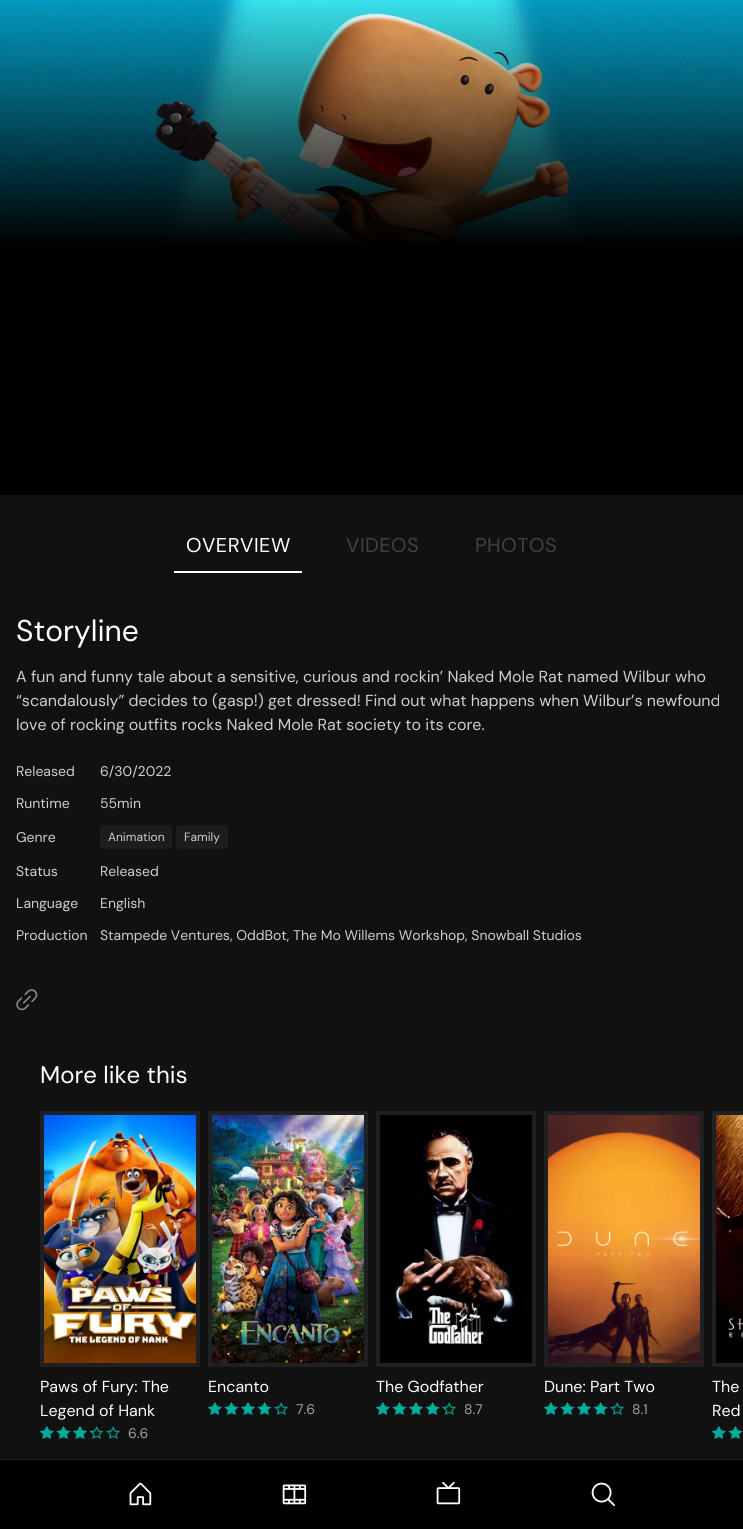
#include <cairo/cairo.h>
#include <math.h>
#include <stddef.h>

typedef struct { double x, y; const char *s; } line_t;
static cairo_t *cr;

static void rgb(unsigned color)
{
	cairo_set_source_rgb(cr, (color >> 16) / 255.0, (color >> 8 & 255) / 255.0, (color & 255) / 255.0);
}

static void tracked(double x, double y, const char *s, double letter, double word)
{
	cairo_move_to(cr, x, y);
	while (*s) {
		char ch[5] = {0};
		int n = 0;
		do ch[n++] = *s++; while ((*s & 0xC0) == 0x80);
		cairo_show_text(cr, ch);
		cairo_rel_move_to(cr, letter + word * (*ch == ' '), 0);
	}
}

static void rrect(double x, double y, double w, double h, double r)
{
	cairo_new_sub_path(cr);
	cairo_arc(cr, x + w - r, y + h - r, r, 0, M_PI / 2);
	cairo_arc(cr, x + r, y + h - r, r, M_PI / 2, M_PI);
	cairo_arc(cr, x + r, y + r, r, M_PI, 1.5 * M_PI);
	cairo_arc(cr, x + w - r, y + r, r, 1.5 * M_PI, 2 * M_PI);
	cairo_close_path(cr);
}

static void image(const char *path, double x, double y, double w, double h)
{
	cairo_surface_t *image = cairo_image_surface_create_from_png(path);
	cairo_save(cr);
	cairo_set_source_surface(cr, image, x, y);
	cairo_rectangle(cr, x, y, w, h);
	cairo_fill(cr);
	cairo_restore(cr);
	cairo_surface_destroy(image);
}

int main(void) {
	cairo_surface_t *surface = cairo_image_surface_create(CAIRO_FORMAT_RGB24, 743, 1529);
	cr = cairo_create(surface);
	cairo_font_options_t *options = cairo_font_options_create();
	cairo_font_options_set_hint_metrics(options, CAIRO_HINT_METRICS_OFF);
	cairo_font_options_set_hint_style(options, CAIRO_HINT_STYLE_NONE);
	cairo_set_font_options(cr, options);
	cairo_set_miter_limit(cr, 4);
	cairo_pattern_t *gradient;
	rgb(0x111111);
	cairo_paint(cr);
	image("img/1.png", 0, 0, 743, 246);
	gradient = cairo_pattern_create_linear(372, 495, 372, 0);
	cairo_pattern_add_color_stop_rgba(gradient, 0, 0, 0, 0, 1);
	cairo_pattern_add_color_stop_rgba(gradient, 0.5, 0, 0, 0, 1);
	cairo_pattern_add_color_stop_rgba(gradient, 1, 0, 0, 0, 0);
	cairo_set_source(cr, gradient);
	cairo_pattern_destroy(gradient);
	cairo_rectangle(cr, 0, 5, 743, 490);
	cairo_fill(cr);
	rgb(0xffffff);
	cairo_rectangle(cr, 174, 571, 128, 2);
	cairo_fill(cr);
	rgb(0x1c1d1e);
	rrect(100, 825, 72, 24, 4);
	cairo_fill(cr);
	rrect(176, 825, 52, 24, 4);
	cairo_fill(cr);
	image("img/2.png", 16, 989, 22, 22);
	rgb(0x1f2021);
	cairo_rectangle(cr, 40, 1111, 160, 256);
	cairo_fill(cr);
	image("img/3.png", 44, 1115, 152, 248);
	image("img/4.png", 40, 1426, 80, 13);
	image("img/5.png", 40, 1426, 53, 13);
	cairo_rectangle(cr, 208, 1111, 160, 256);
	cairo_fill(cr);
	image("img/6.png", 212, 1115, 152, 248);
	image("img/4.png", 208, 1402, 80, 13);
	image("img/7.png", 208, 1402, 61, 13);
	cairo_rectangle(cr, 376, 1111, 160, 256);
	cairo_fill(cr);
	image("img/8.png", 380, 1115, 152, 248);
	image("img/4.png", 376, 1402, 80, 13);
	image("img/9.png", 376, 1402, 70, 13);
	cairo_rectangle(cr, 544, 1111, 160, 256);
	cairo_fill(cr);
	image("img/10.png", 548, 1115, 152, 248);
	image("img/4.png", 544, 1402, 80, 13);
	image("img/11.png", 544, 1402, 64, 13);
	cairo_rectangle(cr, 712, 1111, 31, 256);
	cairo_fill(cr);
	image("img/12.png", 716, 1115, 27, 248);
	image("img/13.png", 712, 1426, 31, 13);
	image("img/14.png", 712, 1426, 31, 13);
	rgb(0x000000);
	cairo_rectangle(cr, 0, 1460, 743, 69);
	cairo_fill(cr);
	rgb(0x1f2123);
	cairo_rectangle(cr, 0, 1459, 743, 1);
	cairo_fill(cr);
	image("img/15.png", 129, 1482, 23, 24);
	image("img/16.png", 282, 1484, 25, 21);
	image("img/17.png", 436, 1481, 25, 24);
	image("img/18.png", 591, 1482, 25, 24);
	cairo_select_font_face(cr, "DM Sans", CAIRO_FONT_SLANT_NORMAL, CAIRO_FONT_WEIGHT_NORMAL);
	cairo_set_font_size(cr, 20);
	rgb(0xffffff);
	tracked(186, 552, "OVERVIEW", 0.5, 0);
	rgb(0x414141);
	tracked(346, 552, "VIDEOS", 0.5, 0);
	tracked(475, 552, "PHOTOS", 0.5, 0);
	cairo_set_font_size(cr, 30);
	rgb(0xffffff);
	cairo_move_to(cr, 16, 641);
	cairo_show_text(cr, "Storyline");
	cairo_set_font_size(cr, 16);
	rgb(0xcfcfcf);
	{
		static const line_t items[] = {
			{16, 682, "A fun and funny tale about a sensitive, curious and rockin’ Naked Mole Rat named Wilbur who"},
			{16, 706, "“scandalously” decides to (gasp!) get dressed! Find out what happens when Wilbur’s newfound"},
			{16, 730, "love of rocking outfits rocks Naked Mole Rat society to its core."},
		};
		for (size_t i = 0; i < sizeof items / sizeof *items; i++) {
			cairo_move_to(cr, items[i].x, items[i].y);
			cairo_show_text(cr, items[i].s);
		}
	}
	cairo_set_font_size(cr, 14);
	{
		static const line_t items[] = {
			{16, 776, "Released"},
			{100, 776, "6/30/2022"},
			{16, 808, "Runtime"},
			{100, 808, "55min"},
			{16, 842, "Genre"},
		};
		for (size_t i = 0; i < sizeof items / sizeof *items; i++) {
			cairo_move_to(cr, items[i].x, items[i].y);
			cairo_show_text(cr, items[i].s);
		}
	}
	cairo_set_font_size(cr, 12);
	cairo_move_to(cr, 108, 841);
	cairo_show_text(cr, "Animation");
	cairo_move_to(cr, 184, 841);
	cairo_show_text(cr, "Family");
	cairo_set_font_size(cr, 14);
	{
		static const line_t items[] = {
			{16, 876, "Status"},
			{100, 876, "Released"},
			{16, 908, "Language"},
			{100, 908, "English"},
			{16, 940, "Production"},
			{100, 940, "Stampede Ventures, OddBot, The Mo Willems Workshop, Snowball Studios"},
		};
		for (size_t i = 0; i < sizeof items / sizeof *items; i++) {
			cairo_move_to(cr, items[i].x, items[i].y);
			cairo_show_text(cr, items[i].s);
		}
	}
	cairo_set_font_size(cr, 24);
	rgb(0xffffff);
	cairo_move_to(cr, 40, 1083);
	cairo_show_text(cr, "More like this");
	cairo_set_font_size(cr, 16);
	cairo_move_to(cr, 40, 1392);
	cairo_show_text(cr, "Paws of Fury: The");
	cairo_move_to(cr, 40, 1416);
	cairo_show_text(cr, "Legend of Hank");
	cairo_set_font_size(cr, 14);
	rgb(0xa0a0a0);
	cairo_move_to(cr, 128, 1438);
	cairo_show_text(cr, "6.6");
	cairo_set_font_size(cr, 16);
	rgb(0xffffff);
	cairo_move_to(cr, 208, 1392);
	cairo_show_text(cr, "Encanto");
	cairo_set_font_size(cr, 14);
	rgb(0xa0a0a0);
	cairo_move_to(cr, 296, 1414);
	cairo_show_text(cr, "7.6");
	cairo_set_font_size(cr, 16);
	rgb(0xffffff);
	cairo_move_to(cr, 376, 1392);
	cairo_show_text(cr, "The Godfather");
	cairo_set_font_size(cr, 14);
	rgb(0xa0a0a0);
	cairo_move_to(cr, 464, 1414);
	cairo_show_text(cr, "8.7");
	cairo_set_font_size(cr, 16);
	rgb(0xffffff);
	cairo_move_to(cr, 544, 1392);
	cairo_show_text(cr, "Dune: Part Two");
	cairo_set_font_size(cr, 14);
	rgb(0xa0a0a0);
	cairo_move_to(cr, 632, 1414);
	cairo_show_text(cr, "8.1");
	cairo_set_font_size(cr, 16);
	rgb(0xffffff);
	cairo_move_to(cr, 712, 1392);
	cairo_show_text(cr, "The");
	cairo_move_to(cr, 712, 1416);
	cairo_show_text(cr, "Red");
	cairo_surface_write_to_png(surface, "page.png");
	cairo_font_options_destroy(options);
	cairo_destroy(cr);
	cairo_surface_destroy(surface);
	return 0;
}
